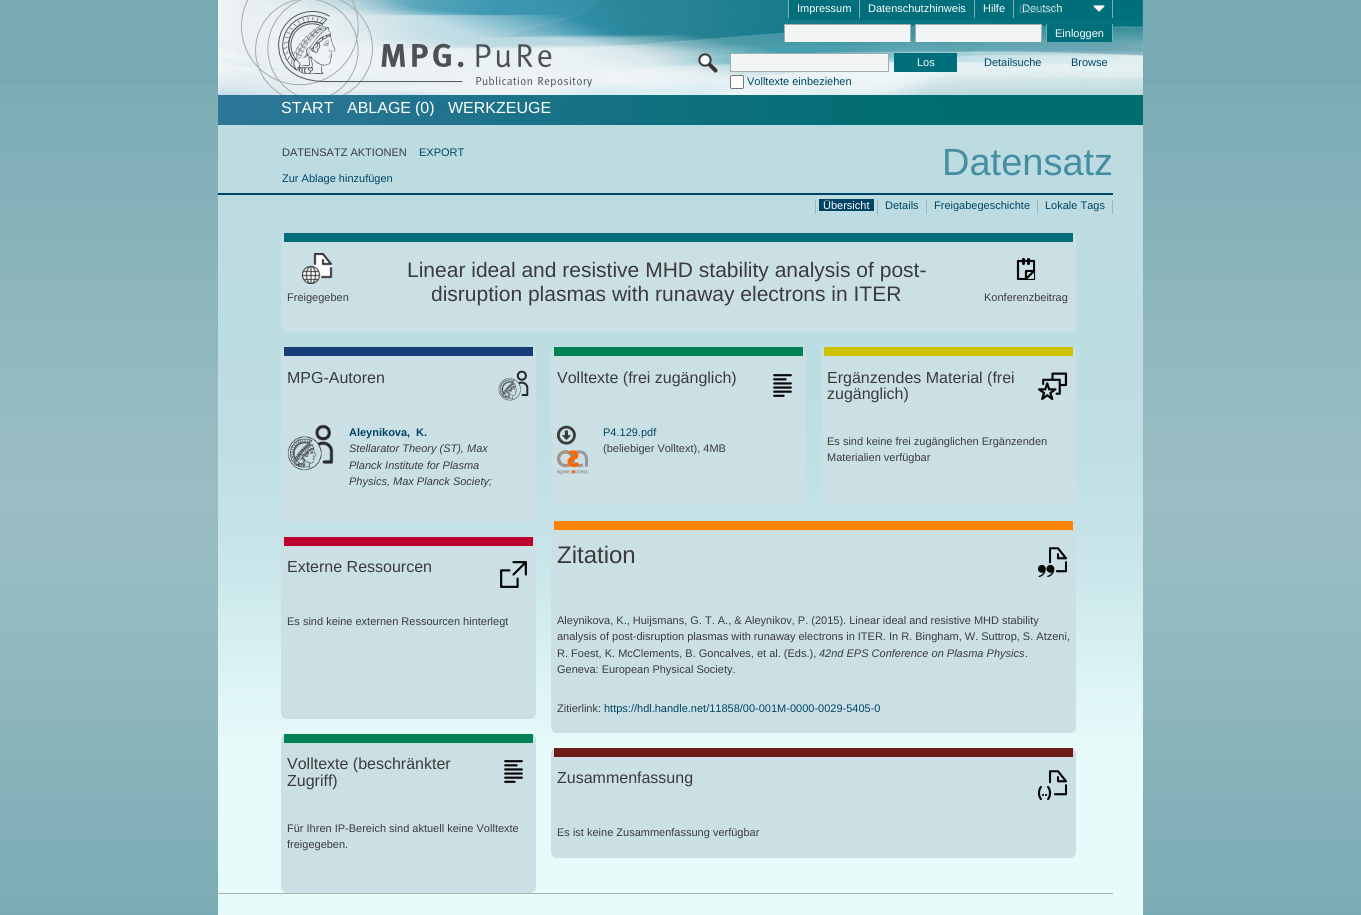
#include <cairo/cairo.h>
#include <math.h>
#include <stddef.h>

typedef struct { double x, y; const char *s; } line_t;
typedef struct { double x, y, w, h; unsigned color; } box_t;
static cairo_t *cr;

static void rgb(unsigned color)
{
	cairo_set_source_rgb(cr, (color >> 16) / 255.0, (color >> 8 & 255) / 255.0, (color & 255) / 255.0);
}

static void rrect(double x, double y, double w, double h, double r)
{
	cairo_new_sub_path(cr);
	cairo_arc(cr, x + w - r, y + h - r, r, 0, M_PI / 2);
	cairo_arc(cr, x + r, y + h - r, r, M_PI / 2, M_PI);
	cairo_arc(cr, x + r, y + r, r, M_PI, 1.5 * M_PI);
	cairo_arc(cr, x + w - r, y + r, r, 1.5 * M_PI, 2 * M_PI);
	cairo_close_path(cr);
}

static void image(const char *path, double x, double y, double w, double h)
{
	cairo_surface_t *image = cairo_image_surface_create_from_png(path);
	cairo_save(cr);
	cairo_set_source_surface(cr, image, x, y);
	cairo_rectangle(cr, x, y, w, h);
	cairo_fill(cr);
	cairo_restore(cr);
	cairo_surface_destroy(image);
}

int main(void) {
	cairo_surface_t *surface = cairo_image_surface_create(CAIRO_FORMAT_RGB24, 1361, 915);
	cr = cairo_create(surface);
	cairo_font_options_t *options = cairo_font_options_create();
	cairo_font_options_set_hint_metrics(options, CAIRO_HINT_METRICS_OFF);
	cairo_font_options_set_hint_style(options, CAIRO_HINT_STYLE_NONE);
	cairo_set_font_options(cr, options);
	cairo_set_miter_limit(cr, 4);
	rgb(0x78aab3);
	cairo_paint(cr);
	image("img/1.png", 0, 85, 1361, 828);
	rgb(0xe8fbfb);
	cairo_rectangle(cr, 218, 0, 925, 915);
	cairo_fill(cr);
	image("img/2.png", 218, 0, 925, 737);
	{
		static const box_t items[] = {
			{788, 0, 1, 18, 0x7cadb4},
			{789, 0, 70, 20, 0x006f7b},
			{859, 0, 1, 18, 0x7cadb4},
			{860, 0, 114, 20, 0x006f7b},
			{974, 0, 1, 18, 0x7cadb4},
			{975, 0, 38, 20, 0x006f7b},
			{1013, 0, 1, 18, 0x7cadb4},
			{1014, 0, 95, 20, 0x006f7b},
		};
		for (size_t i = 0; i < sizeof items / sizeof *items; i++) {
			rgb(items[i].color);
			cairo_rectangle(cr, items[i].x, items[i].y, items[i].w, items[i].h);
			cairo_fill(cr);
		}
	}
	image("img/3.png", 1093, 5, 12, 7);
	rgb(0x7cadb4);
	cairo_rectangle(cr, 1112, 0, 1, 18);
	cairo_fill(cr);
	rgb(0xf3f5f5);
	cairo_rectangle(cr, 785, 25, 125, 17);
	cairo_fill(cr);
	cairo_save(cr);
	cairo_rectangle(cr, 218, 0, 895, 42);
	cairo_clip(cr);
	cairo_rectangle(cr, 784.5, 24.5, 126, 20);
	rgb(0x9fafae);
	cairo_set_line_width(cr, 1);
	cairo_stroke(cr);
	cairo_restore(cr);
	cairo_rectangle(cr, 916, 25, 125, 17);
	cairo_fill(cr);
	cairo_save(cr);
	cairo_rectangle(cr, 218, 0, 895, 42);
	cairo_clip(cr);
	cairo_rectangle(cr, 915.5, 24.5, 126, 20);
	rgb(0x9fafae);
	cairo_set_line_width(cr, 1);
	cairo_stroke(cr);
	cairo_restore(cr);
	{
		static const box_t items[] = {
			{1046, 24, 1, 18, 0x7cadb4},
			{1047, 24, 65, 18, 0x006f7b},
			{1112, 24, 1, 18, 0x7cadb4},
		};
		for (size_t i = 0; i < sizeof items / sizeof *items; i++) {
			rgb(items[i].color);
			cairo_rectangle(cr, items[i].x, items[i].y, items[i].w, items[i].h);
			cairo_fill(cr);
		}
	}
	image("img/4.png", 241, 0, 351, 95);
	image("img/5.png", 698, 53, 21, 20);
	rgb(0x006f7b);
	cairo_rectangle(cr, 894, 53, 63, 19);
	cairo_fill(cr);
	rgb(0xf3f5f5);
	cairo_rectangle(cr, 730.5, 53.5, 158, 18);
	cairo_fill_preserve(cr);
	rgb(0x9fafae);
	cairo_set_line_width(cr, 1);
	cairo_stroke(cr);
	rgb(0xffffff);
	rrect(730.5, 75.5, 13, 13, 1.5);
	cairo_fill_preserve(cr);
	rgb(0x767676);
	cairo_stroke(cr);
	{
		static const box_t items[] = {
			{218, 193, 895, 2, 0x004465},
			{218, 893, 895, 1, 0xb0b1b1},
			{815, 200, 1, 14, 0x9bb5ce},
			{819, 199, 55, 12, 0x004465},
			{877, 200, 1, 14, 0x9bb5ce},
			{926, 200, 1, 14, 0x9bb5ce},
			{1037, 200, 1, 14, 0x9bb5ce},
			{1112, 200, 1, 14, 0x9bb5ce},
		};
		for (size_t i = 0; i < sizeof items / sizeof *items; i++) {
			rgb(items[i].color);
			cairo_rectangle(cr, items[i].x, items[i].y, items[i].w, items[i].h);
			cairo_fill(cr);
		}
	}
	rgb(0xcbe0e5);
	rrect(281, 233, 795, 99, 6);
	cairo_fill(cr);
	rgb(0x006f7b);
	cairo_rectangle(cr, 284, 233, 789, 9);
	cairo_fill(cr);
	image("img/6.png", 302, 253, 31, 31);
	image("img/7.png", 1016, 257, 20, 23);
	rgb(0xcbe0e5);
	rrect(281, 347, 255, 175, 6);
	cairo_fill(cr);
	rgb(0x163d7a);
	cairo_rectangle(cr, 284, 347, 249, 9);
	cairo_fill(cr);
	image("img/8.png", 498, 370, 31, 31);
	image("img/9.png", 287, 424, 47, 47);
	rgb(0xcbe0e5);
	rrect(281, 537, 255, 182, 6);
	cairo_fill(cr);
	rgb(0xbe0031);
	cairo_rectangle(cr, 284, 537, 249, 9);
	cairo_fill(cr);
	image("img/10.png", 500, 561, 27, 27);
	rgb(0xcbe0e5);
	rrect(281, 734, 255, 159, 6);
	cairo_fill(cr);
	rgb(0x008354);
	cairo_rectangle(cr, 284, 734, 249, 9);
	cairo_fill(cr);
	image("img/11.png", 504, 760, 19, 23);
	rgb(0xcbe0e5);
	rrect(551, 347, 255, 158, 6);
	cairo_fill(cr);
	rgb(0x008354);
	cairo_rectangle(cr, 554, 347, 249, 9);
	cairo_fill(cr);
	image("img/11.png", 773, 374, 19, 23);
	image("img/12.png", 557, 425, 19, 20);
	image("img/13.png", 557, 450, 31, 25);
	rgb(0xcbe0e5);
	rrect(821, 347, 255, 159, 6);
	cairo_fill(cr);
	rgb(0xcec200);
	cairo_rectangle(cr, 824, 347, 249, 9);
	cairo_fill(cr);
	image("img/14.png", 1038, 372, 30, 28);
	rgb(0xcbe0e5);
	rrect(551, 521, 525, 212, 6);
	cairo_fill(cr);
	rgb(0xff8304);
	cairo_rectangle(cr, 554, 521, 519, 9);
	cairo_fill(cr);
	image("img/15.png", 1037, 547, 31, 30);
	rgb(0xcbe0e5);
	rrect(551, 748, 525, 110, 6);
	cairo_fill(cr);
	rgb(0x6e1e16);
	cairo_rectangle(cr, 554, 748, 519, 9);
	cairo_fill(cr);
	image("img/16.png", 1037, 770, 31, 31);
	cairo_select_font_face(cr, "Liberation Sans", CAIRO_FONT_SLANT_NORMAL, CAIRO_FONT_WEIGHT_NORMAL);
	cairo_set_font_size(cr, 11);
	rgb(0xffffff);
	{
		static const line_t items[] = {
			{797, 12, "Impressum"},
			{868, 12, "Datenschutzhinweis"},
			{983, 12, "Hilfe"},
			{1022, 12, "Deutsch"},
		};
		for (size_t i = 0; i < sizeof items / sizeof *items; i++) {
			cairo_move_to(cr, items[i].x, items[i].y);
			cairo_show_text(cr, items[i].s);
		}
	}
	rgb(0x4797a0);
	cairo_move_to(cr, 1019, 13);
	cairo_show_text(cr, "Deutsch");
	rgb(0xffffff);
	cairo_move_to(cr, 1055, 37);
	cairo_show_text(cr, "Einloggen");
	cairo_move_to(cr, 917, 66);
	cairo_show_text(cr, "Los");
	rgb(0x004465);
	{
		static const line_t items[] = {
			{984, 66, "Detailsuche"},
			{1071, 66, "Browse"},
			{747, 85, "Volltexte einbeziehen"},
		};
		for (size_t i = 0; i < sizeof items / sizeof *items; i++) {
			cairo_move_to(cr, items[i].x, items[i].y);
			cairo_show_text(cr, items[i].s);
		}
	}
	cairo_set_font_size(cr, 16);
	rgb(0xffffff);
	cairo_move_to(cr, 281, 113);
	cairo_show_text(cr, "START");
	cairo_move_to(cr, 347, 113);
	cairo_show_text(cr, "ABLAGE");
	cairo_save(cr);
	cairo_rectangle(cr, 347, 100, 88, 16);
	cairo_clip(cr);
	cairo_move_to(cr, 415, 113);
	cairo_show_text(cr, "(0)");
	cairo_restore(cr);
	cairo_move_to(cr, 448, 113);
	cairo_show_text(cr, "WERKZEUGE");
	cairo_set_font_size(cr, 11);
	rgb(0x3a3b3b);
	cairo_move_to(cr, 282, 156);
	cairo_show_text(cr, "DATENSATZ AKTIONEN");
	rgb(0x004465);
	cairo_move_to(cr, 419, 156);
	cairo_show_text(cr, "EXPORT");
	cairo_move_to(cr, 282, 182);
	cairo_show_text(cr, "Zur Ablage hinzufügen");
	cairo_set_font_size(cr, 38);
	rgb(0x468ea2);
	cairo_move_to(cr, 942, 175);
	cairo_show_text(cr, "Datensatz");
	cairo_set_font_size(cr, 11);
	rgb(0xffffff);
	cairo_move_to(cr, 823, 209);
	cairo_show_text(cr, "Übersicht");
	rgb(0x004465);
	cairo_move_to(cr, 885, 209);
	cairo_show_text(cr, "Details");
	cairo_save(cr);
	cairo_rectangle(cr, 930, 199, 104, 12);
	cairo_clip(cr);
	cairo_move_to(cr, 934, 209);
	cairo_show_text(cr, "Freigabegeschichte");
	cairo_restore(cr);
	cairo_move_to(cr, 1045, 209);
	cairo_show_text(cr, "Lokale Tags");
	rgb(0x3a3b3b);
	cairo_move_to(cr, 287, 301);
	cairo_show_text(cr, "Freigegeben");
	cairo_set_font_size(cr, 21);
	cairo_move_to(cr, 407, 277);
	cairo_show_text(cr, "Linear ideal and resistive MHD stability analysis of post-");
	cairo_move_to(cr, 431, 301);
	cairo_show_text(cr, "disruption plasmas with runaway electrons in ITER");
	cairo_set_font_size(cr, 11);
	cairo_move_to(cr, 984, 301);
	cairo_show_text(cr, "Konferenzbeitrag");
	cairo_set_font_size(cr, 16);
	cairo_move_to(cr, 287, 383);
	cairo_show_text(cr, "MPG-Autoren");
	cairo_select_font_face(cr, "Liberation Sans", CAIRO_FONT_SLANT_NORMAL, CAIRO_FONT_WEIGHT_BOLD);
	cairo_set_font_size(cr, 11);
	rgb(0x004465);
	cairo_move_to(cr, 349, 436);
	cairo_show_text(cr, "Aleynikova,");
	cairo_move_to(cr, 416, 436);
	cairo_show_text(cr, "K.");
	cairo_select_font_face(cr, "Liberation Sans", CAIRO_FONT_SLANT_ITALIC, CAIRO_FONT_WEIGHT_NORMAL);
	rgb(0x3a3b3b);
	{
		static const line_t items[] = {
			{349, 452, "Stellarator Theory (ST), Max"},
			{349, 469, "Planck Institute for Plasma"},
			{349, 485, "Physics, Max Planck Society;"},
		};
		for (size_t i = 0; i < sizeof items / sizeof *items; i++) {
			cairo_move_to(cr, items[i].x, items[i].y);
			cairo_show_text(cr, items[i].s);
		}
	}
	cairo_select_font_face(cr, "Liberation Sans", CAIRO_FONT_SLANT_NORMAL, CAIRO_FONT_WEIGHT_NORMAL);
	cairo_set_font_size(cr, 16);
	cairo_move_to(cr, 287, 572);
	cairo_show_text(cr, "Externe Ressourcen");
	cairo_set_font_size(cr, 11);
	cairo_move_to(cr, 287, 625);
	cairo_show_text(cr, "Es sind keine externen Ressourcen hinterlegt");
	cairo_set_font_size(cr, 16);
	cairo_move_to(cr, 287, 769);
	cairo_show_text(cr, "Volltexte (beschränkter");
	cairo_move_to(cr, 287, 786);
	cairo_show_text(cr, "Zugriff)");
	cairo_set_font_size(cr, 11);
	cairo_move_to(cr, 287, 832);
	cairo_show_text(cr, "Für Ihren IP-Bereich sind aktuell keine Volltexte");
	cairo_move_to(cr, 287, 848);
	cairo_show_text(cr, "freigegeben.");
	cairo_set_font_size(cr, 16);
	cairo_move_to(cr, 557, 383);
	cairo_show_text(cr, "Volltexte (frei zugänglich)");
	cairo_set_font_size(cr, 11);
	rgb(0x004465);
	cairo_move_to(cr, 603, 436);
	cairo_show_text(cr, "P4.129.pdf");
	rgb(0x3a3b3b);
	cairo_move_to(cr, 603, 452);
	cairo_show_text(cr, "(beliebiger Volltext), 4MB");
	cairo_set_font_size(cr, 16);
	cairo_move_to(cr, 827, 383);
	cairo_show_text(cr, "Ergänzendes Material (frei");
	cairo_move_to(cr, 827, 399);
	cairo_show_text(cr, "zugänglich)");
	cairo_set_font_size(cr, 11);
	cairo_move_to(cr, 827, 445);
	cairo_show_text(cr, "Es sind keine frei zugänglichen Ergänzenden");
	cairo_move_to(cr, 827, 461);
	cairo_show_text(cr, "Materialien verfügbar");
	cairo_set_font_size(cr, 24);
	cairo_move_to(cr, 557, 563);
	cairo_show_text(cr, "Zitation");
	cairo_set_font_size(cr, 11);
	{
		static const line_t items[] = {
			{557, 624, "Aleynikova, K., Huijsmans, G. T. A., & Aleynikov, P. (2015). Linear ideal and resistive MHD stability"},
			{557, 640, "analysis of post-disruption plasmas with runaway electrons in ITER. In R. Bingham, W. Suttrop, S. Atzeni,"},
			{557, 657, "R. Foest, K. McClements, B. Goncalves, et al. (Eds.),"},
		};
		for (size_t i = 0; i < sizeof items / sizeof *items; i++) {
			cairo_move_to(cr, items[i].x, items[i].y);
			cairo_show_text(cr, items[i].s);
		}
	}
	cairo_select_font_face(cr, "Liberation Sans", CAIRO_FONT_SLANT_ITALIC, CAIRO_FONT_WEIGHT_NORMAL);
	cairo_move_to(cr, 819, 657);
	cairo_show_text(cr, "42nd EPS Conference on Plasma Physics");
	cairo_select_font_face(cr, "Liberation Sans", CAIRO_FONT_SLANT_NORMAL, CAIRO_FONT_WEIGHT_NORMAL);
	{
		static const line_t items[] = {
			{1025, 657, "."},
			{557, 673, "Geneva: European Physical Society."},
			{557, 712, "Zitierlink:"},
		};
		for (size_t i = 0; i < sizeof items / sizeof *items; i++) {
			cairo_move_to(cr, items[i].x, items[i].y);
			cairo_show_text(cr, items[i].s);
		}
	}
	rgb(0x004465);
	cairo_move_to(cr, 604, 712);
	cairo_show_text(cr, "https://hdl.handle.net/11858/00-001M-0000-0029-5405-0");
	cairo_set_font_size(cr, 16);
	rgb(0x3a3b3b);
	cairo_move_to(cr, 557, 783);
	cairo_show_text(cr, "Zusammenfassung");
	cairo_set_font_size(cr, 11);
	cairo_move_to(cr, 557, 836);
	cairo_show_text(cr, "Es ist keine Zusammenfassung verfügbar");
	cairo_surface_write_to_png(surface, "page.png");
	cairo_font_options_destroy(options);
	cairo_destroy(cr);
	cairo_surface_destroy(surface);
	return 0;
}
